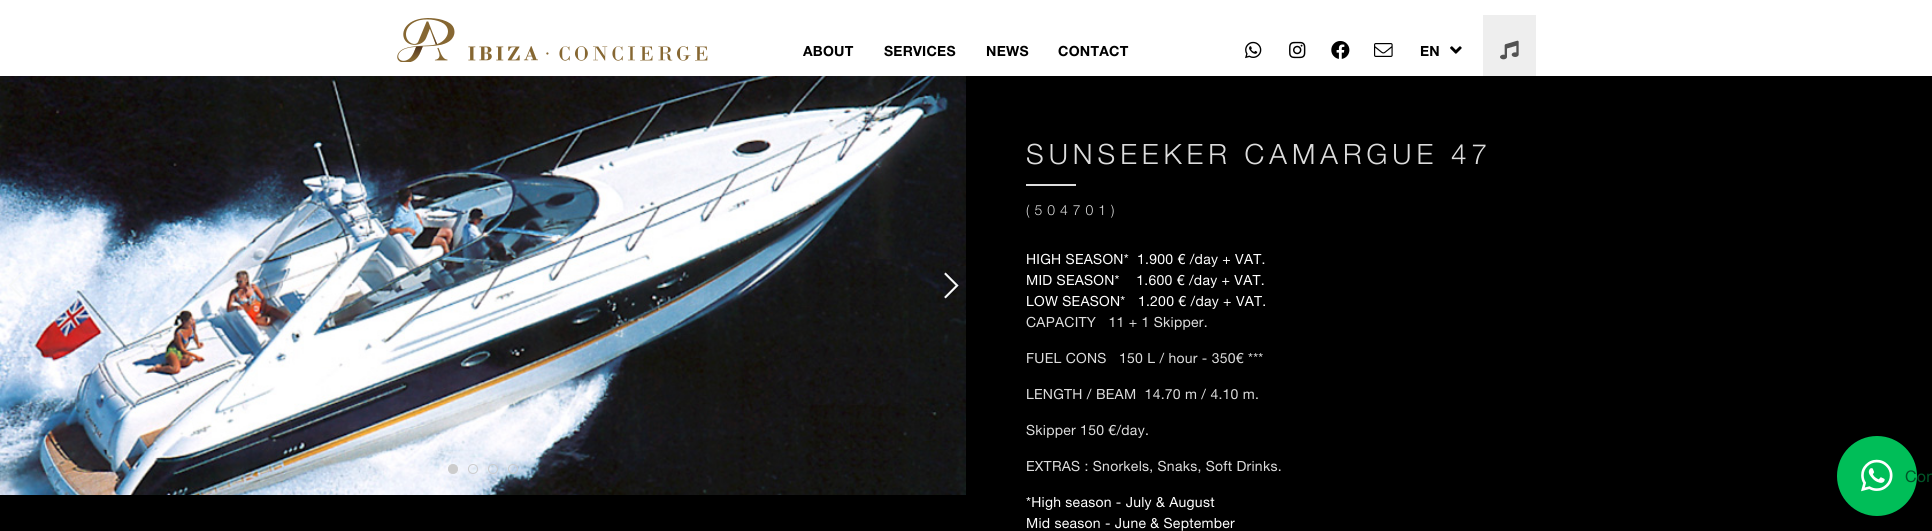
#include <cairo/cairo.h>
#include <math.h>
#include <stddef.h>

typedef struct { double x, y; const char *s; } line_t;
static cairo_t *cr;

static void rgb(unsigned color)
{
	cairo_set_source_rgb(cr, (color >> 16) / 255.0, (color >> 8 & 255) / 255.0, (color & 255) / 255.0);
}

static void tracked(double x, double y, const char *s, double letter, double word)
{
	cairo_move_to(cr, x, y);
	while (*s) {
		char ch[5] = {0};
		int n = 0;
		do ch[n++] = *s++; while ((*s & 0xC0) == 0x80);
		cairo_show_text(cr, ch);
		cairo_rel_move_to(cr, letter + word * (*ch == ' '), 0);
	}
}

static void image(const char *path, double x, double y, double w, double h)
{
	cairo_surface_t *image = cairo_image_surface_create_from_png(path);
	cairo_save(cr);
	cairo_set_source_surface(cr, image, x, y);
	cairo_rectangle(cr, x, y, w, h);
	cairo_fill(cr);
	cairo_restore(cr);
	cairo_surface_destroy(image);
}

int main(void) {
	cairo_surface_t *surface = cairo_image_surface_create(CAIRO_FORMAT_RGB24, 1932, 531);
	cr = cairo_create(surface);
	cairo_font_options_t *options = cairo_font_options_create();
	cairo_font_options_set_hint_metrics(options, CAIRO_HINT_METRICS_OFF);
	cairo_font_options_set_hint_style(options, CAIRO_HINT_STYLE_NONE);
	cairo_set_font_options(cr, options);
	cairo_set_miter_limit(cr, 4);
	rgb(0xffffff);
	cairo_paint(cr);
	image("img/1.png", 397, 18, 311, 44);
	image("img/2.png", 1245, 41, 17, 18);
	image("img/3.png", 1289, 41, 17, 18);
	image("img/4.png", 1331, 41, 19, 18);
	image("img/5.png", 1374, 43, 19, 14);
	image("img/6.png", 1450, 46, 12, 8);
	rgb(0xeeeeee);
	cairo_rectangle(cr, 1483, 15, 53, 61);
	cairo_fill(cr);
	image("img/7.png", 1500, 40, 19, 20);
	rgb(0x000000);
	cairo_rectangle(cr, 0, 76, 1932, 455);
	cairo_fill(cr);
	image("img/8.png", 0, 76, 966, 419);
	image("img/9.png", 9, 272, 14, 26);
	image("img/10.png", 944, 272, 15, 27);
	rgb(0xcccccc);
	cairo_arc(cr, 453, 469, 4.5, 0, 2 * M_PI);
	cairo_fill_preserve(cr);
	cairo_set_line_width(cr, 1);
	cairo_stroke(cr);
	cairo_arc(cr, 473, 469, 4.5, 0, 2 * M_PI);
	cairo_stroke(cr);
	cairo_arc(cr, 493, 469, 4.5, 0, 2 * M_PI);
	cairo_stroke(cr);
	cairo_arc(cr, 513, 469, 4.5, 0, 2 * M_PI);
	cairo_stroke(cr);
	rgb(0xdddddd);
	cairo_rectangle(cr, 1026, 184, 50, 2);
	cairo_fill(cr);
	rgb(0x00be58);
	cairo_arc(cr, 1877, 476, 40, 0, 2 * M_PI);
	cairo_fill(cr);
	image("img/11.png", 1861, 459, 32, 33);
	cairo_select_font_face(cr, "Helvetica Neue", CAIRO_FONT_SLANT_NORMAL, CAIRO_FONT_WEIGHT_BOLD);
	cairo_set_font_size(cr, 14);
	rgb(0x000000);
	{
		static const line_t items[] = {
			{803, 56, "ABOUT"},
			{884, 56, "SERVICES"},
			{986, 56, "NEWS"},
			{1058, 56, "CONTACT"},
			{1420, 56, "EN"},
		};
		for (size_t i = 0; i < sizeof items / sizeof *items; i++) {
			tracked(items[i].x, items[i].y, items[i].s, 0.25, 0);
		}
	}
	cairo_select_font_face(cr, "Helvetica Neue Light", CAIRO_FONT_SLANT_NORMAL, CAIRO_FONT_WEIGHT_NORMAL);
	cairo_set_font_size(cr, 28);
	rgb(0xdddddd);
	tracked(1026, 164, "SUNSEEKER CAMARGUE 47", 5, 0);
	cairo_set_font_size(cr, 14);
	tracked(1026, 215, "(504701)", 5, 0);
	cairo_select_font_face(cr, "Helvetica Neue", CAIRO_FONT_SLANT_NORMAL, CAIRO_FONT_WEIGHT_NORMAL);
	rgb(0xffffff);
	{
		static const line_t items[] = {
			{1026, 264, "HIGH SEASON*  1.900 € /day + VAT."},
			{1026, 285, "MID SEASON*    1.600 € /day + VAT."},
			{1026, 306, "LOW SEASON*   1.200 € /day + VAT."},
		};
		for (size_t i = 0; i < sizeof items / sizeof *items; i++) {
			tracked(items[i].x, items[i].y, items[i].s, 0.25, 0);
		}
	}
	rgb(0xdddddd);
	{
		static const line_t items[] = {
			{1026, 327, "CAPACITY   11 + 1 Skipper."},
			{1026, 363, "FUEL CONS   150 L / hour - 350€ ***"},
			{1026, 399, "LENGTH / BEAM  14.70 m / 4.10 m."},
			{1026, 435, "Skipper 150 €/day."},
			{1026, 471, "EXTRAS : Snorkels, Snaks, Soft Drinks."},
		};
		for (size_t i = 0; i < sizeof items / sizeof *items; i++) {
			tracked(items[i].x, items[i].y, items[i].s, 0.25, 0);
		}
	}
	rgb(0xffffff);
	tracked(1026, 507, "*High season - July & August", 0.25, 0);
	tracked(1026, 528, "Mid season - June & September", 0.25, 0);
	cairo_set_font_size(cr, 16);
	rgb(0x005628);
	tracked(1905, 482, "Con", 0.25, 0);
	cairo_surface_write_to_png(surface, "page.png");
	cairo_font_options_destroy(options);
	cairo_destroy(cr);
	cairo_surface_destroy(surface);
	return 0;
}
